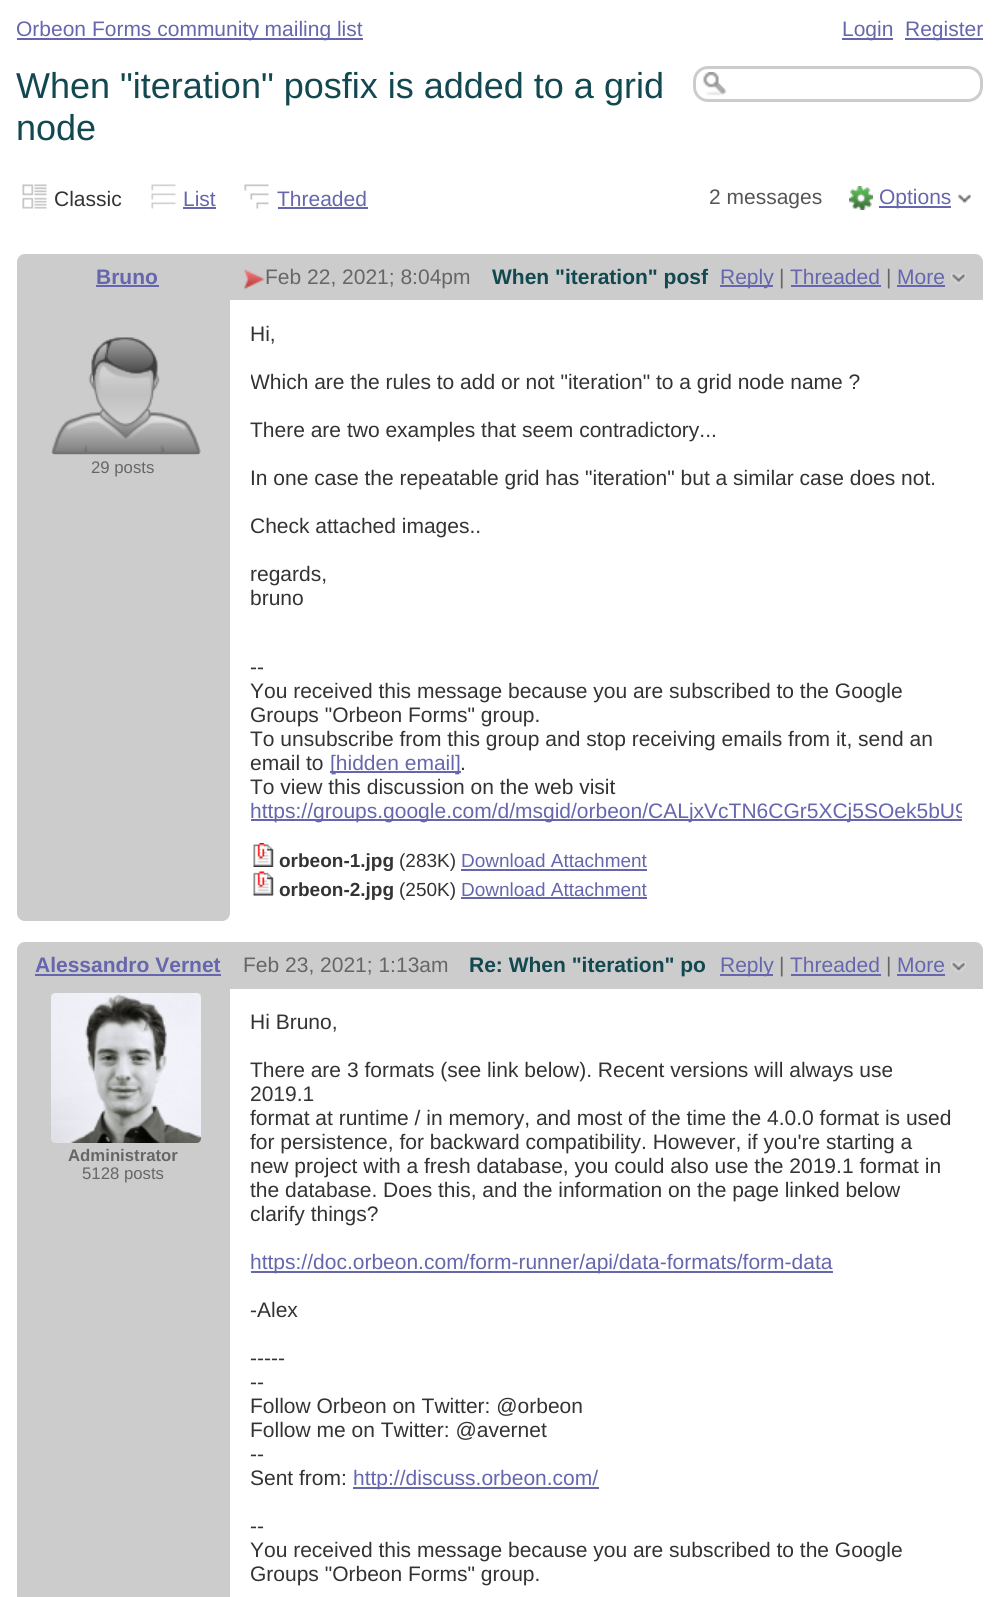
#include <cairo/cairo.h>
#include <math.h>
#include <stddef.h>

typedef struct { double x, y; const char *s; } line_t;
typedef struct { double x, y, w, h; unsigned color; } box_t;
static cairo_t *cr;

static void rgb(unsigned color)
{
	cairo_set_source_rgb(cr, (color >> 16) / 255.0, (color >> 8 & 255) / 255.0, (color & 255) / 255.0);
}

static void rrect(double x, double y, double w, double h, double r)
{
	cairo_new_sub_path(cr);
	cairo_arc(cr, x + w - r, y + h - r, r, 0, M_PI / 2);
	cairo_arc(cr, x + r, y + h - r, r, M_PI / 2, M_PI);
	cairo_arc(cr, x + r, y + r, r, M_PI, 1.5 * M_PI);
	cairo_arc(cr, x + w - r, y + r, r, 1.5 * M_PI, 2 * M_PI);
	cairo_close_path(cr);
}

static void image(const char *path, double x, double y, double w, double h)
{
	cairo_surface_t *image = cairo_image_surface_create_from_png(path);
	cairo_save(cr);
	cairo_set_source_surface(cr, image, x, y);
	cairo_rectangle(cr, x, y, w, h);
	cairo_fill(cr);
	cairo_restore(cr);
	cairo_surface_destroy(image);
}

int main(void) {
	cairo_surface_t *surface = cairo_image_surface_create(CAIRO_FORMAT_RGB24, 998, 1597);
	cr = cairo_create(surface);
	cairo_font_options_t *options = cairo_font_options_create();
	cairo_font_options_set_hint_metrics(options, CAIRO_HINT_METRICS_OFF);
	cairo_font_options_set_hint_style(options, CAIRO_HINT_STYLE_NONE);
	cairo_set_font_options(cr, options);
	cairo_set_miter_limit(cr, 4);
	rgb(0xffffff);
	cairo_paint(cr);
	{
		static const box_t items[] = {
			{17, 38, 346, 2, 0x6666ae},
			{842, 38, 51, 2, 0x6666ae},
			{905, 38, 78, 2, 0x6666ae},
		};
		for (size_t i = 0; i < sizeof items / sizeof *items; i++) {
			rgb(items[i].color);
			cairo_rectangle(cr, items[i].x, items[i].y, items[i].w, items[i].h);
			cairo_fill(cr);
		}
	}
	image("img/1.png", 703, 72, 24, 24);
	rrect(694.5, 67.5, 287, 33, 13.5);
	rgb(0xcccccc);
	cairo_set_line_width(cr, 3);
	cairo_stroke(cr);
	image("img/2.png", 22, 184, 25, 25);
	image("img/3.png", 151, 184, 25, 25);
	rgb(0x6666ae);
	cairo_rectangle(cr, 183, 207, 33, 2);
	cairo_fill(cr);
	image("img/4.png", 244, 184, 25, 25);
	cairo_rectangle(cr, 278, 207, 90, 2);
	cairo_fill(cr);
	image("img/5.png", 849, 186, 24, 24);
	cairo_rectangle(cr, 879, 206, 72, 2);
	cairo_fill(cr);
	image("img/6.png", 958, 194, 13, 9);
	rgb(0xcccccc);
	cairo_new_path(cr);
	cairo_move_to(cr, 25, 254);
	cairo_line_to(cr, 975, 254);
	cairo_curve_to(cr, 979.5, 254, 983, 257.5, 983, 262);
	cairo_line_to(cr, 983, 300);
	cairo_line_to(cr, 17, 300);
	cairo_line_to(cr, 17, 262);
	cairo_curve_to(cr, 17, 257.5, 20.5, 254, 25, 254);
	cairo_close_path(cr);
	cairo_fill(cr);
	rgb(0x6666ae);
	cairo_rectangle(cr, 96, 285, 63, 2);
	cairo_fill(cr);
	image("img/7.png", 244, 269, 21, 21);
	{
		static const box_t items[] = {
			{720, 285, 53, 2, 0x6666ae},
			{791, 285, 90, 2, 0x6666ae},
			{897, 285, 48, 2, 0x6666ae},
		};
		for (size_t i = 0; i < sizeof items / sizeof *items; i++) {
			rgb(items[i].color);
			cairo_rectangle(cr, items[i].x, items[i].y, items[i].w, items[i].h);
			cairo_fill(cr);
		}
	}
	image("img/8.png", 951, 273, 15, 11);
	rgb(0xcccccc);
	cairo_new_path(cr);
	cairo_move_to(cr, 17, 300);
	cairo_line_to(cr, 230, 300);
	cairo_line_to(cr, 230, 913);
	cairo_curve_to(cr, 230, 917.5, 226.5, 921, 222, 921);
	cairo_line_to(cr, 25, 921);
	cairo_curve_to(cr, 20.5, 921, 17, 917.5, 17, 913);
	cairo_close_path(cr);
	cairo_fill(cr);
	image("img/9.png", 51, 337, 150, 118);
	rgb(0x6666ae);
	cairo_rectangle(cr, 330, 771, 131, 2);
	cairo_fill(cr);
	cairo_rectangle(cr, 251, 819, 711, 2);
	cairo_fill(cr);
	image("img/10.png", 253, 843, 21, 24);
	cairo_rectangle(cr, 461, 869, 186, 2);
	cairo_fill(cr);
	image("img/11.png", 253, 871, 21, 25);
	cairo_rectangle(cr, 461, 897, 186, 2);
	cairo_fill(cr);
	rgb(0xcccccc);
	cairo_new_path(cr);
	cairo_move_to(cr, 25, 942);
	cairo_line_to(cr, 975, 942);
	cairo_curve_to(cr, 979.5, 942, 983, 945.5, 983, 950);
	cairo_line_to(cr, 983, 989);
	cairo_line_to(cr, 17, 989);
	cairo_line_to(cr, 17, 950);
	cairo_curve_to(cr, 17, 945.5, 20.5, 942, 25, 942);
	cairo_close_path(cr);
	cairo_fill(cr);
	{
		static const box_t items[] = {
			{35, 974, 186, 2, 0x6666ae},
			{720, 974, 53, 2, 0x6666ae},
			{791, 974, 90, 2, 0x6666ae},
			{897, 974, 48, 2, 0x6666ae},
		};
		for (size_t i = 0; i < sizeof items / sizeof *items; i++) {
			rgb(items[i].color);
			cairo_rectangle(cr, items[i].x, items[i].y, items[i].w, items[i].h);
			cairo_fill(cr);
		}
	}
	image("img/12.png", 951, 961, 15, 11);
	rgb(0xcccccc);
	cairo_rectangle(cr, 17, 989, 213, 608);
	cairo_fill(cr);
	image("img/13.png", 51, 993, 150, 150);
	rgb(0x6666ae);
	cairo_rectangle(cr, 251, 1271, 582, 2);
	cairo_fill(cr);
	cairo_rectangle(cr, 353, 1487, 246, 2);
	cairo_fill(cr);
	cairo_select_font_face(cr, "Liberation Sans", CAIRO_FONT_SLANT_NORMAL, CAIRO_FONT_WEIGHT_NORMAL);
	cairo_set_font_size(cr, 21);
	{
		static const line_t items[] = {
			{16, 36, "Orbeon Forms community mailing list"},
			{842, 36, "Login"},
			{905, 36, "Register"},
		};
		for (size_t i = 0; i < sizeof items / sizeof *items; i++) {
			cairo_move_to(cr, items[i].x, items[i].y);
			cairo_show_text(cr, items[i].s);
		}
	}
	cairo_set_font_size(cr, 36);
	rgb(0x124850);
	cairo_move_to(cr, 16, 98);
	cairo_show_text(cr, "When \"iteration\" posfix is added to a grid");
	cairo_move_to(cr, 16, 140);
	cairo_show_text(cr, "node");
	cairo_set_font_size(cr, 21);
	rgb(0x333333);
	cairo_move_to(cr, 54, 206);
	cairo_show_text(cr, "Classic");
	rgb(0x6666ae);
	cairo_move_to(cr, 183, 206);
	cairo_show_text(cr, "List");
	cairo_move_to(cr, 277, 206);
	cairo_show_text(cr, "Threaded");
	rgb(0x555555);
	cairo_move_to(cr, 709, 204);
	cairo_show_text(cr, "2 messages");
	rgb(0x6666ae);
	cairo_move_to(cr, 879, 204);
	cairo_show_text(cr, "Options");
	cairo_select_font_face(cr, "Liberation Sans", CAIRO_FONT_SLANT_NORMAL, CAIRO_FONT_WEIGHT_BOLD);
	cairo_move_to(cr, 96, 284);
	cairo_show_text(cr, "Bruno");
	cairo_select_font_face(cr, "Liberation Sans", CAIRO_FONT_SLANT_NORMAL, CAIRO_FONT_WEIGHT_NORMAL);
	rgb(0x666666);
	cairo_move_to(cr, 265, 284);
	cairo_show_text(cr, "Feb 22, 2021; 8:04pm");
	cairo_select_font_face(cr, "Liberation Sans", CAIRO_FONT_SLANT_NORMAL, CAIRO_FONT_WEIGHT_BOLD);
	rgb(0x124850);
	cairo_move_to(cr, 492, 284);
	cairo_show_text(cr, "When \"iteration\" posf");
	cairo_select_font_face(cr, "Liberation Sans", CAIRO_FONT_SLANT_NORMAL, CAIRO_FONT_WEIGHT_NORMAL);
	rgb(0x6666ae);
	cairo_move_to(cr, 720, 284);
	cairo_show_text(cr, "Reply");
	rgb(0x666666);
	cairo_move_to(cr, 779, 284);
	cairo_show_text(cr, "|");
	rgb(0x6666ae);
	cairo_move_to(cr, 790, 284);
	cairo_show_text(cr, "Threaded");
	rgb(0x666666);
	cairo_move_to(cr, 886, 284);
	cairo_show_text(cr, "|");
	rgb(0x6666ae);
	cairo_move_to(cr, 897, 284);
	cairo_show_text(cr, "More");
	cairo_set_font_size(cr, 16.75);
	rgb(0x666666);
	cairo_move_to(cr, 91, 473);
	cairo_show_text(cr, "29 posts");
	cairo_set_font_size(cr, 21);
	rgb(0x333333);
	cairo_move_to(cr, 250, 341);
	cairo_show_text(cr, "Hi,");
	cairo_save(cr);
	cairo_rectangle(cr, 251, 321, 711, 579);
	cairo_clip(cr);
	cairo_move_to(cr, 250, 389);
	cairo_show_text(cr, "Which are the rules to add or not \"iteration\" to a grid node name ?");
	cairo_restore(cr);
	{
		static const line_t items[] = {
			{250, 437, "There are two examples that seem contradictory..."},
			{250, 485, "In one case the repeatable grid has \"iteration\" but a similar case does not."},
			{250, 533, "Check attached images.."},
			{250, 581, "regards,"},
			{250, 605, "bruno"},
			{250, 674, "--"},
			{250, 698, "You received this message because you are subscribed to the Google"},
			{250, 722, "Groups \"Orbeon Forms\" group."},
			{250, 746, "To unsubscribe from this group and stop receiving emails from it, send an"},
			{250, 770, "email to"},
		};
		for (size_t i = 0; i < sizeof items / sizeof *items; i++) {
			cairo_move_to(cr, items[i].x, items[i].y);
			cairo_show_text(cr, items[i].s);
		}
	}
	rgb(0x6666ae);
	cairo_move_to(cr, 330, 770);
	cairo_show_text(cr, "[hidden email]");
	rgb(0x333333);
	cairo_move_to(cr, 460, 770);
	cairo_show_text(cr, ".");
	cairo_move_to(cr, 250, 794);
	cairo_show_text(cr, "To view this discussion on the web visit");
	cairo_save(cr);
	cairo_rectangle(cr, 251, 321, 711, 579);
	cairo_clip(cr);
	rgb(0x6666ae);
	cairo_move_to(cr, 250, 818);
	cairo_show_text(cr, "https://groups.google.com/d/msgid/orbeon/CALjxVcTN6CGr5XCj5SOek5bU9");
	cairo_restore(cr);
	cairo_select_font_face(cr, "Liberation Sans", CAIRO_FONT_SLANT_NORMAL, CAIRO_FONT_WEIGHT_BOLD);
	cairo_set_font_size(cr, 19);
	cairo_move_to(cr, 279, 867);
	cairo_show_text(cr, "orbeon-1.jpg");
	cairo_select_font_face(cr, "Liberation Sans", CAIRO_FONT_SLANT_NORMAL, CAIRO_FONT_WEIGHT_NORMAL);
	cairo_move_to(cr, 399, 867);
	cairo_show_text(cr, "(283K)");
	rgb(0x6666ae);
	cairo_move_to(cr, 461, 867);
	cairo_show_text(cr, "Download Attachment");
	cairo_select_font_face(cr, "Liberation Sans", CAIRO_FONT_SLANT_NORMAL, CAIRO_FONT_WEIGHT_BOLD);
	rgb(0x333333);
	cairo_move_to(cr, 279, 896);
	cairo_show_text(cr, "orbeon-2.jpg");
	cairo_select_font_face(cr, "Liberation Sans", CAIRO_FONT_SLANT_NORMAL, CAIRO_FONT_WEIGHT_NORMAL);
	cairo_move_to(cr, 399, 896);
	cairo_show_text(cr, "(250K)");
	rgb(0x6666ae);
	cairo_move_to(cr, 461, 896);
	cairo_show_text(cr, "Download Attachment");
	cairo_select_font_face(cr, "Liberation Sans", CAIRO_FONT_SLANT_NORMAL, CAIRO_FONT_WEIGHT_BOLD);
	cairo_set_font_size(cr, 21);
	cairo_move_to(cr, 35, 972);
	cairo_show_text(cr, "Alessandro Vernet");
	cairo_select_font_face(cr, "Liberation Sans", CAIRO_FONT_SLANT_NORMAL, CAIRO_FONT_WEIGHT_NORMAL);
	rgb(0x666666);
	cairo_move_to(cr, 243, 972);
	cairo_show_text(cr, "Feb 23, 2021; 1:13am");
	cairo_select_font_face(cr, "Liberation Sans", CAIRO_FONT_SLANT_NORMAL, CAIRO_FONT_WEIGHT_BOLD);
	rgb(0x124850);
	cairo_move_to(cr, 469, 972);
	cairo_show_text(cr, "Re: When \"iteration\" po");
	cairo_select_font_face(cr, "Liberation Sans", CAIRO_FONT_SLANT_NORMAL, CAIRO_FONT_WEIGHT_NORMAL);
	rgb(0x6666ae);
	cairo_move_to(cr, 720, 972);
	cairo_show_text(cr, "Reply");
	rgb(0x666666);
	cairo_move_to(cr, 779, 972);
	cairo_show_text(cr, "|");
	rgb(0x6666ae);
	cairo_move_to(cr, 790, 972);
	cairo_show_text(cr, "Threaded");
	rgb(0x666666);
	cairo_move_to(cr, 886, 972);
	cairo_show_text(cr, "|");
	rgb(0x6666ae);
	cairo_move_to(cr, 897, 972);
	cairo_show_text(cr, "More");
	cairo_select_font_face(cr, "Liberation Sans", CAIRO_FONT_SLANT_NORMAL, CAIRO_FONT_WEIGHT_BOLD);
	cairo_set_font_size(cr, 16.75);
	rgb(0x666666);
	cairo_move_to(cr, 68, 1161);
	cairo_show_text(cr, "Administrator");
	cairo_select_font_face(cr, "Liberation Sans", CAIRO_FONT_SLANT_NORMAL, CAIRO_FONT_WEIGHT_NORMAL);
	cairo_move_to(cr, 82, 1179);
	cairo_show_text(cr, "5128 posts");
	cairo_set_font_size(cr, 21);
	rgb(0x333333);
	{
		static const line_t items[] = {
			{250, 1029, "Hi Bruno,"},
			{250, 1077, "There are 3 formats (see link below). Recent versions will always use"},
			{250, 1101, "2019.1"},
			{250, 1125, "format at runtime / in memory, and most of the time the 4.0.0 format is used"},
			{250, 1149, "for persistence, for backward compatibility. However, if you're starting a"},
			{250, 1173, "new project with a fresh database, you could also use the 2019.1 format in"},
			{250, 1197, "the database. Does this, and the information on the page linked below"},
			{250, 1221, "clarify things?"},
		};
		for (size_t i = 0; i < sizeof items / sizeof *items; i++) {
			cairo_move_to(cr, items[i].x, items[i].y);
			cairo_show_text(cr, items[i].s);
		}
	}
	rgb(0x6666ae);
	cairo_move_to(cr, 250, 1269);
	cairo_show_text(cr, "https://doc.orbeon.com/form-runner/api/data-formats/form-data");
	rgb(0x333333);
	{
		static const line_t items[] = {
			{250, 1317, "-Alex"},
			{250, 1365, "-----"},
			{250, 1389, "--"},
			{250, 1413, "Follow Orbeon on Twitter: @orbeon"},
			{250, 1437, "Follow me on Twitter: @avernet"},
			{250, 1461, "--"},
			{250, 1485, "Sent from:"},
		};
		for (size_t i = 0; i < sizeof items / sizeof *items; i++) {
			cairo_move_to(cr, items[i].x, items[i].y);
			cairo_show_text(cr, items[i].s);
		}
	}
	rgb(0x6666ae);
	cairo_move_to(cr, 353, 1485);
	cairo_show_text(cr, "http://discuss.orbeon.com/");
	rgb(0x333333);
	{
		static const line_t items[] = {
			{250, 1533, "--"},
			{250, 1557, "You received this message because you are subscribed to the Google"},
			{250, 1581, "Groups \"Orbeon Forms\" group."},
		};
		for (size_t i = 0; i < sizeof items / sizeof *items; i++) {
			cairo_move_to(cr, items[i].x, items[i].y);
			cairo_show_text(cr, items[i].s);
		}
	}
	cairo_surface_write_to_png(surface, "page.png");
	cairo_font_options_destroy(options);
	cairo_destroy(cr);
	cairo_surface_destroy(surface);
	return 0;
}
